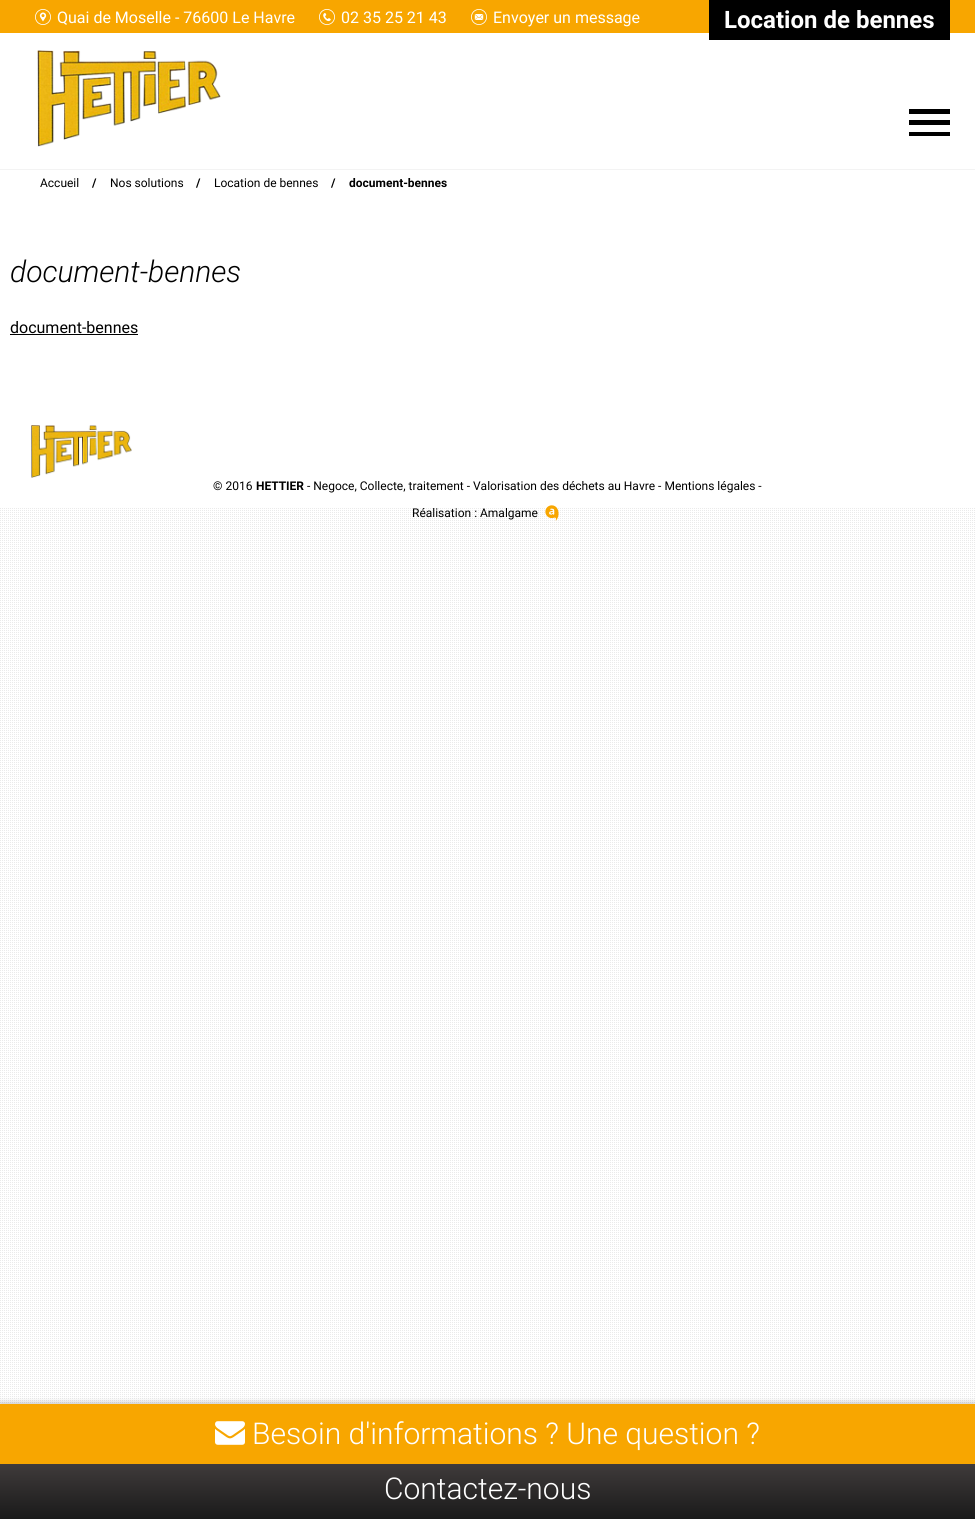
#include <cairo/cairo.h>
#include <math.h>
#include <stddef.h>

typedef struct { double x, y; const char *s; } line_t;
static cairo_t *cr;

static void rgb(unsigned color)
{
	cairo_set_source_rgb(cr, (color >> 16) / 255.0, (color >> 8 & 255) / 255.0, (color & 255) / 255.0);
}

static void rrect(double x, double y, double w, double h, double r)
{
	cairo_new_sub_path(cr);
	cairo_arc(cr, x + w - r, y + h - r, r, 0, M_PI / 2);
	cairo_arc(cr, x + r, y + h - r, r, M_PI / 2, M_PI);
	cairo_arc(cr, x + r, y + r, r, M_PI, 1.5 * M_PI);
	cairo_arc(cr, x + w - r, y + r, r, 1.5 * M_PI, 2 * M_PI);
	cairo_close_path(cr);
}

static void soft_shadow(double x, double y, double w, double h, double r, double blur, double alpha)
{
	cairo_push_group_with_content(cr, CAIRO_CONTENT_ALPHA);
	cairo_set_operator(cr, CAIRO_OPERATOR_SOURCE);
	for (int i = 15; i >= -15 && fmin(w, h) + blur * i / 3 > 0; i -= 2) {
		double e = blur * i / 6;
		cairo_set_source_rgba(cr, 0, 0, 0, alpha * erfc((i - 1) / 8.5) / 2);
		rrect(x - e, y - e, w + 2 * e, h + 2 * e, fmax(0, fmin(r + e + blur * .6, fmin(w, h) / 2 + e)));
		cairo_fill(cr);
	}
	cairo_pattern_t *soft = cairo_pop_group(cr);
	cairo_mask(cr, soft);
	cairo_pattern_destroy(soft);
}

static void image(const char *path, double x, double y, double w, double h)
{
	cairo_surface_t *image = cairo_image_surface_create_from_png(path);
	cairo_save(cr);
	cairo_set_source_surface(cr, image, x, y);
	cairo_rectangle(cr, x, y, w, h);
	cairo_fill(cr);
	cairo_restore(cr);
	cairo_surface_destroy(image);
}

int main(void) {
	cairo_surface_t *surface = cairo_image_surface_create(CAIRO_FORMAT_RGB24, 975, 1519);
	cr = cairo_create(surface);
	cairo_font_options_t *options = cairo_font_options_create();
	cairo_font_options_set_hint_metrics(options, CAIRO_HINT_METRICS_OFF);
	cairo_font_options_set_hint_style(options, CAIRO_HINT_STYLE_NONE);
	cairo_set_font_options(cr, options);
	cairo_set_miter_limit(cr, 4);
	cairo_pattern_t *gradient;
	rgb(0xffffff);
	cairo_paint(cr);
	image("img/1.png", 0, 507, 975, 897);
	rgb(0xf8a600);
	cairo_rectangle(cr, 0, 0, 975, 33);
	cairo_fill(cr);
	image("img/2.png", 35, 9, 16, 16);
	image("img/3.png", 319, 9, 16, 16);
	image("img/4.png", 471, 9, 16, 16);
	rgb(0x000000);
	cairo_rectangle(cr, 709, 0, 241, 40);
	cairo_fill(cr);
	image("img/5.png", 37, 50, 184, 97);
	cairo_new_path(cr);
	cairo_move_to(cr, 909, 136);
	cairo_line_to(cr, 950, 136);
	cairo_line_to(cr, 950, 132);
	cairo_line_to(cr, 909, 132);
	cairo_close_path(cr);
	cairo_move_to(cr, 909, 125);
	cairo_line_to(cr, 950, 125);
	cairo_line_to(cr, 950, 120);
	cairo_line_to(cr, 909, 120);
	cairo_close_path(cr);
	cairo_move_to(cr, 909, 109);
	cairo_line_to(cr, 909, 114);
	cairo_line_to(cr, 950, 114);
	cairo_line_to(cr, 950, 109);
	cairo_close_path(cr);
	cairo_fill(cr);
	rgb(0xf3f3f3);
	cairo_rectangle(cr, 0, 169, 975, 1);
	cairo_fill(cr);
	rgb(0x000000);
	cairo_rectangle(cr, 10, 334, 128, 1);
	cairo_fill(cr);
	image("img/6.png", 31, 425, 101, 53);
	image("img/7.png", 545, 505, 14, 16);
	rgb(0x000000);
	soft_shadow(0, 1402, 975, 115, 0, 2.5, 0.2);
	rgb(0xf8a600);
	cairo_rectangle(cr, 0, 1404, 975, 60);
	cairo_fill(cr);
	image("img/8.png", 215, 1421, 30, 24);
	gradient = cairo_pattern_create_linear(488, 1519, 488, 1464);
	cairo_pattern_add_color_stop_rgba(gradient, 0, 0.102, 0.102, 0.102, 1);
	cairo_pattern_add_color_stop_rgba(gradient, 1, 0.247, 0.231, 0.231, 1);
	cairo_set_source(cr, gradient);
	cairo_pattern_destroy(gradient);
	cairo_rectangle(cr, 0, 1464, 975, 55);
	cairo_fill(cr);
	cairo_select_font_face(cr, "Roboto", CAIRO_FONT_SLANT_NORMAL, CAIRO_FONT_WEIGHT_NORMAL);
	cairo_set_font_size(cr, 16);
	rgb(0xffffff);
	{
		static const line_t items[] = {
			{57, 23, "Quai de Moselle - 76600 Le Havre"},
			{341, 23, "02 35 25 21 43"},
			{493, 23, "Envoyer un message"},
		};
		for (size_t i = 0; i < sizeof items / sizeof *items; i++) {
			cairo_move_to(cr, items[i].x, items[i].y);
			cairo_show_text(cr, items[i].s);
		}
	}
	cairo_select_font_face(cr, "Roboto", CAIRO_FONT_SLANT_NORMAL, CAIRO_FONT_WEIGHT_BOLD);
	cairo_set_font_size(cr, 24);
	cairo_move_to(cr, 724, 28);
	cairo_show_text(cr, "Location de bennes");
	cairo_select_font_face(cr, "Roboto", CAIRO_FONT_SLANT_NORMAL, CAIRO_FONT_WEIGHT_NORMAL);
	cairo_set_font_size(cr, 12);
	rgb(0x000000);
	cairo_move_to(cr, 40, 187);
	cairo_show_text(cr, "Accueil");
	cairo_select_font_face(cr, "Roboto", CAIRO_FONT_SLANT_NORMAL, CAIRO_FONT_WEIGHT_BOLD);
	cairo_move_to(cr, 92, 187);
	cairo_show_text(cr, "/");
	cairo_select_font_face(cr, "Roboto", CAIRO_FONT_SLANT_NORMAL, CAIRO_FONT_WEIGHT_NORMAL);
	cairo_move_to(cr, 110, 187);
	cairo_show_text(cr, "Nos solutions");
	cairo_select_font_face(cr, "Roboto", CAIRO_FONT_SLANT_NORMAL, CAIRO_FONT_WEIGHT_BOLD);
	cairo_move_to(cr, 196, 187);
	cairo_show_text(cr, "/");
	cairo_select_font_face(cr, "Roboto", CAIRO_FONT_SLANT_NORMAL, CAIRO_FONT_WEIGHT_NORMAL);
	cairo_move_to(cr, 214, 187);
	cairo_show_text(cr, "Location de bennes");
	cairo_select_font_face(cr, "Roboto", CAIRO_FONT_SLANT_NORMAL, CAIRO_FONT_WEIGHT_BOLD);
	cairo_move_to(cr, 331, 187);
	cairo_show_text(cr, "/");
	cairo_move_to(cr, 349, 187);
	cairo_show_text(cr, "document-bennes");
	cairo_select_font_face(cr, "Roboto Light", CAIRO_FONT_SLANT_ITALIC, CAIRO_FONT_WEIGHT_NORMAL);
	cairo_set_font_size(cr, 30);
	cairo_move_to(cr, 10, 282);
	cairo_show_text(cr, "document-bennes");
	cairo_select_font_face(cr, "Roboto", CAIRO_FONT_SLANT_NORMAL, CAIRO_FONT_WEIGHT_NORMAL);
	cairo_set_font_size(cr, 16);
	cairo_move_to(cr, 10, 333);
	cairo_show_text(cr, "document-bennes");
	cairo_set_font_size(cr, 12);
	cairo_move_to(cr, 213, 490);
	cairo_show_text(cr, "© 2016");
	cairo_select_font_face(cr, "Roboto", CAIRO_FONT_SLANT_NORMAL, CAIRO_FONT_WEIGHT_BOLD);
	cairo_move_to(cr, 256, 490);
	cairo_show_text(cr, "HETTIER");
	cairo_select_font_face(cr, "Roboto", CAIRO_FONT_SLANT_NORMAL, CAIRO_FONT_WEIGHT_NORMAL);
	cairo_move_to(cr, 307, 490);
	cairo_show_text(cr, "- Negoce, Collecte, traitement - Valorisation des déchets au Havre - Mentions légales -");
	cairo_move_to(cr, 412, 517);
	cairo_show_text(cr, "Réalisation : Amalgame");
	cairo_select_font_face(cr, "Roboto Light", CAIRO_FONT_SLANT_NORMAL, CAIRO_FONT_WEIGHT_NORMAL);
	cairo_set_font_size(cr, 30);
	rgb(0xffffff);
	cairo_move_to(cr, 252, 1444);
	cairo_show_text(cr, "Besoin d'informations ? Une question ?");
	cairo_move_to(cr, 384, 1499);
	cairo_show_text(cr, "Contactez-nous");
	cairo_surface_write_to_png(surface, "page.png");
	cairo_font_options_destroy(options);
	cairo_destroy(cr);
	cairo_surface_destroy(surface);
	return 0;
}
